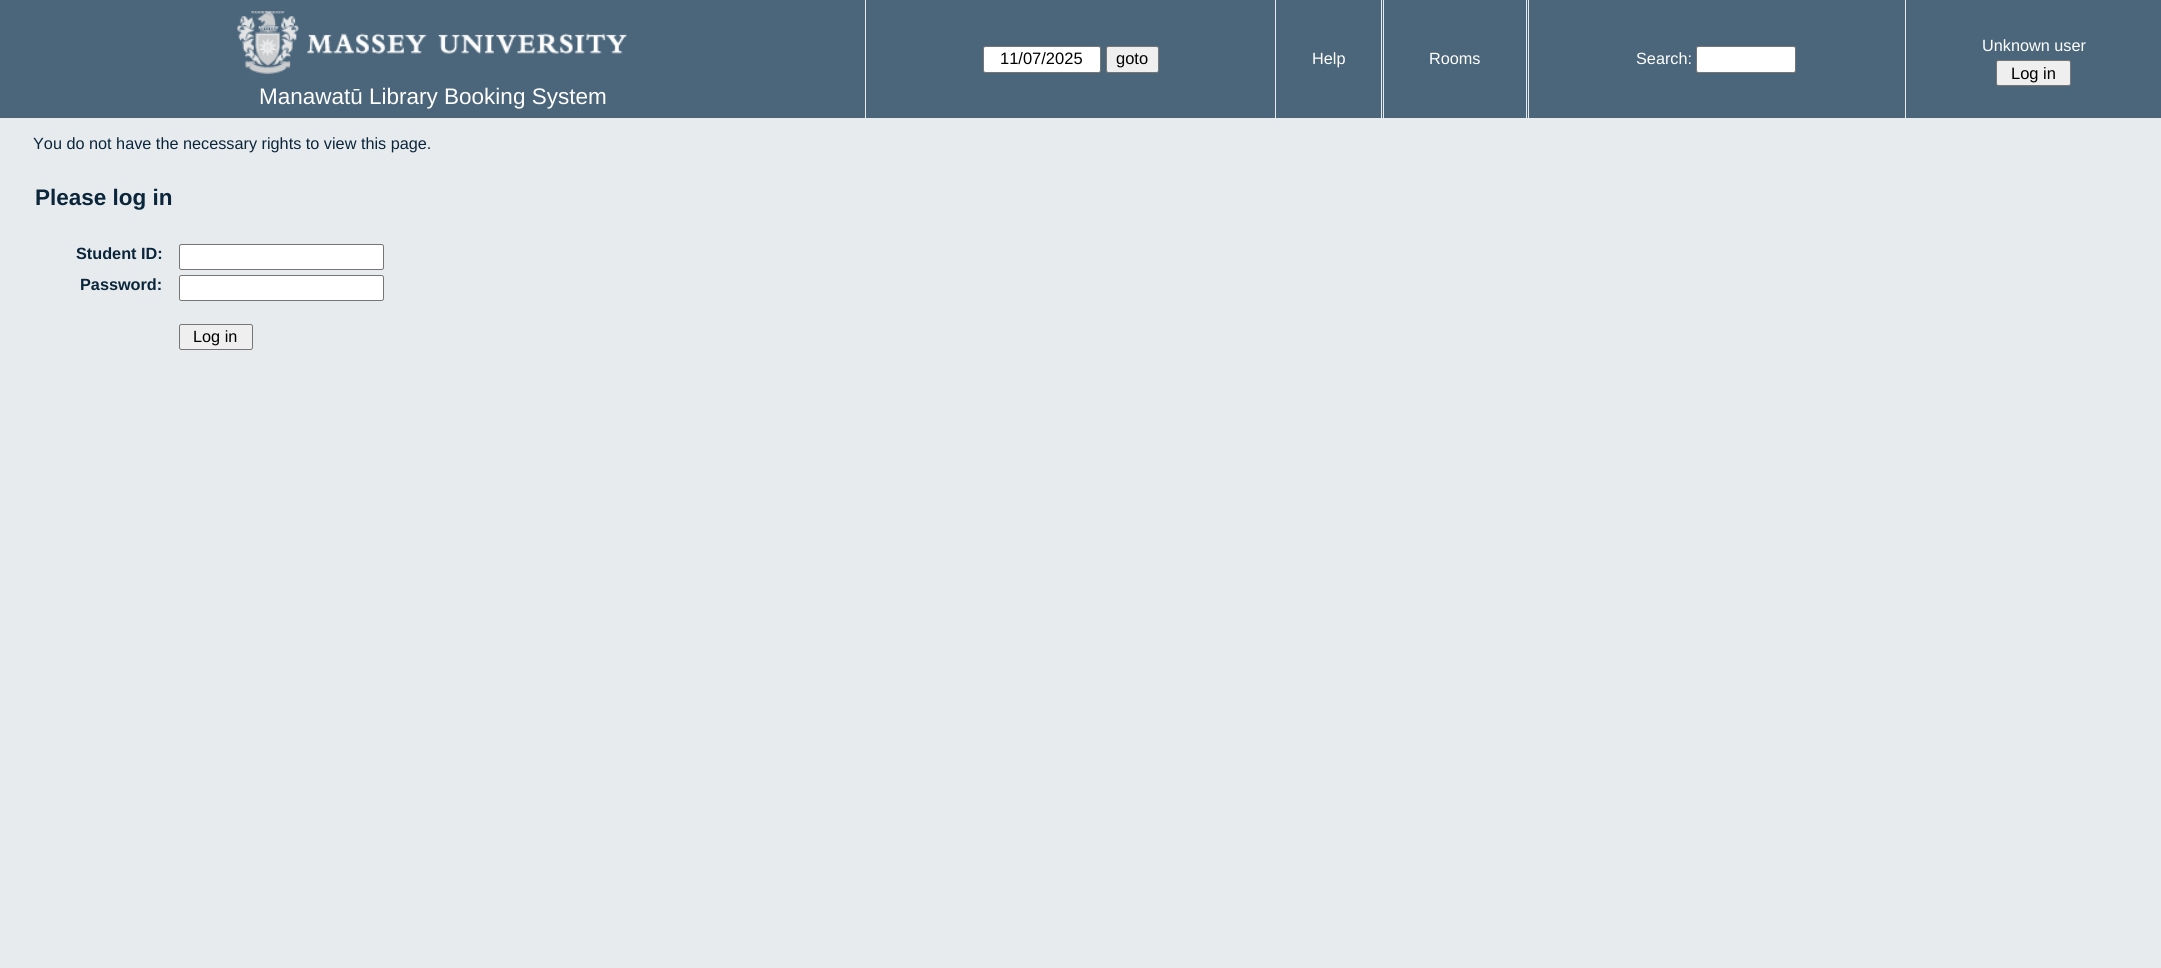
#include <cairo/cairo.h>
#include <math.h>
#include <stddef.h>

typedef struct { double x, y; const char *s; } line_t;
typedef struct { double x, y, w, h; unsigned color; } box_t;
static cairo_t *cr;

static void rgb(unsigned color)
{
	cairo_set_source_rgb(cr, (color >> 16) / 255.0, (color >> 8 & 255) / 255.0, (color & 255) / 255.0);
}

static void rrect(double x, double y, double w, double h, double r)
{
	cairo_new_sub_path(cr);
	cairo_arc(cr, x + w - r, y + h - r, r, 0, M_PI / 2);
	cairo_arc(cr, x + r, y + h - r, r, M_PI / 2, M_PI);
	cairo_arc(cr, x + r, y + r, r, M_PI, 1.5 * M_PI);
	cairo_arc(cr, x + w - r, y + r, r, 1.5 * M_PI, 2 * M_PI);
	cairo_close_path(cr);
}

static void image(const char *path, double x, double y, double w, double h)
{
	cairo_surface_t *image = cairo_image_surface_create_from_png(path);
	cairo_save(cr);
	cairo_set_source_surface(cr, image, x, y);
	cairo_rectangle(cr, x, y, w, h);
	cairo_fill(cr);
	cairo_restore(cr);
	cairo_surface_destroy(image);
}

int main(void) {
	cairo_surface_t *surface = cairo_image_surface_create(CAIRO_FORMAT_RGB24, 2161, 968);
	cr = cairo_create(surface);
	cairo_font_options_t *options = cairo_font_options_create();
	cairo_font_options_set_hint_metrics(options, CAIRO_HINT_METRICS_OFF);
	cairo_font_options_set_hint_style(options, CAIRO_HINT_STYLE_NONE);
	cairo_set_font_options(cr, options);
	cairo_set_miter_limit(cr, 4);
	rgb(0xe7ebee);
	cairo_paint(cr);
	rgb(0x4b667b);
	cairo_rectangle(cr, 866, 0, 409, 118);
	cairo_fill(cr);
	rgb(0xffffff);
	rrect(983.5, 46.5, 117, 26, 2);
	cairo_fill_preserve(cr);
	rgb(0x767676);
	cairo_set_line_width(cr, 1);
	cairo_stroke(cr);
	rgb(0xefefef);
	rrect(1106.5, 46.5, 52, 26, 2);
	cairo_fill_preserve(cr);
	rgb(0x767676);
	cairo_stroke(cr);
	{
		static const box_t items[] = {
			{1276, 0, 107, 118, 0x4b667b},
			{1384, 0, 144, 118, 0x4b667b},
			{1381, 0, 1, 119, 0xe7ebee},
			{1529, 0, 376, 118, 0x4b667b},
			{1526, 0, 1, 119, 0xe7ebee},
		};
		for (size_t i = 0; i < sizeof items / sizeof *items; i++) {
			rgb(items[i].color);
			cairo_rectangle(cr, items[i].x, items[i].y, items[i].w, items[i].h);
			cairo_fill(cr);
		}
	}
	rgb(0xffffff);
	rrect(1696.5, 46.5, 99, 26, 2);
	cairo_fill_preserve(cr);
	rgb(0x767676);
	cairo_stroke(cr);
	rgb(0x4b667b);
	cairo_rectangle(cr, 1906, 0, 255, 118);
	cairo_fill(cr);
	rgb(0xefefef);
	rrect(1996.5, 60.5, 74, 25, 2);
	cairo_fill_preserve(cr);
	rgb(0x767676);
	cairo_stroke(cr);
	rgb(0x4b667b);
	cairo_rectangle(cr, 0, 0, 865, 118);
	cairo_fill(cr);
	image("img/1.png", 237, 11, 390, 63);
	rgb(0xffffff);
	rrect(179.5, 244.5, 204, 25, 2);
	cairo_fill_preserve(cr);
	rgb(0x767676);
	cairo_stroke(cr);
	rgb(0xffffff);
	rrect(179.5, 275.5, 204, 25, 2);
	cairo_fill_preserve(cr);
	rgb(0x767676);
	cairo_stroke(cr);
	rgb(0xefefef);
	rrect(179.5, 324.5, 73, 25, 2);
	cairo_fill_preserve(cr);
	rgb(0x767676);
	cairo_stroke(cr);
	cairo_select_font_face(cr, "Liberation Sans", CAIRO_FONT_SLANT_NORMAL, CAIRO_FONT_WEIGHT_NORMAL);
	cairo_set_font_size(cr, 16.5);
	rgb(0x000000);
	cairo_move_to(cr, 1000, 64);
	cairo_show_text(cr, "11/07/2025");
	cairo_move_to(cr, 1116, 64);
	cairo_show_text(cr, "goto");
	cairo_set_font_size(cr, 16.25);
	rgb(0xffffff);
	{
		static const line_t items[] = {
			{1312, 64, "Help"},
			{1429, 64, "Rooms"},
			{1636, 64, "Search:"},
			{1982, 51, "Unknown user"},
		};
		for (size_t i = 0; i < sizeof items / sizeof *items; i++) {
			cairo_move_to(cr, items[i].x, items[i].y);
			cairo_show_text(cr, items[i].s);
		}
	}
	cairo_set_font_size(cr, 16.5);
	rgb(0x000000);
	cairo_move_to(cr, 2011, 79);
	cairo_show_text(cr, "Log in");
	cairo_set_font_size(cr, 22.5);
	rgb(0xffffff);
	cairo_move_to(cr, 259, 104);
	cairo_show_text(cr, "Manawatū Library Booking System");
	cairo_set_font_size(cr, 16.25);
	rgb(0x0b263b);
	cairo_move_to(cr, 33, 149);
	cairo_show_text(cr, "You do not have the necessary rights to view this page.");
	cairo_select_font_face(cr, "Liberation Sans", CAIRO_FONT_SLANT_NORMAL, CAIRO_FONT_WEIGHT_BOLD);
	cairo_set_font_size(cr, 22.5);
	cairo_move_to(cr, 35, 205);
	cairo_show_text(cr, "Please log in");
	cairo_set_font_size(cr, 16.25);
	cairo_move_to(cr, 76, 259);
	cairo_show_text(cr, "Student ID:");
	cairo_move_to(cr, 80, 290);
	cairo_show_text(cr, "Password:");
	cairo_select_font_face(cr, "Liberation Sans", CAIRO_FONT_SLANT_NORMAL, CAIRO_FONT_WEIGHT_NORMAL);
	rgb(0x000000);
	cairo_move_to(cr, 193, 342);
	cairo_show_text(cr, "Log in");
	cairo_surface_write_to_png(surface, "page.png");
	cairo_font_options_destroy(options);
	cairo_destroy(cr);
	cairo_surface_destroy(surface);
	return 0;
}
